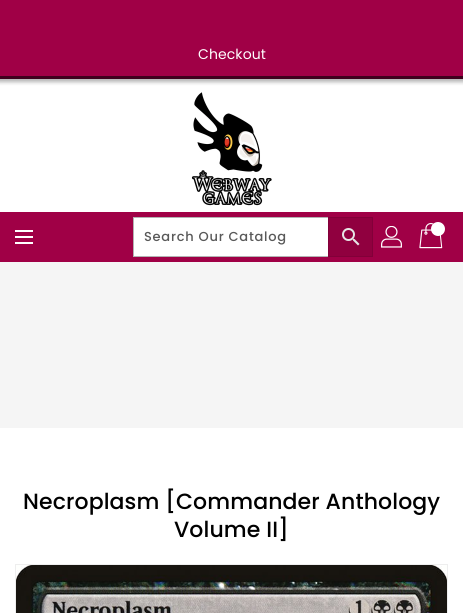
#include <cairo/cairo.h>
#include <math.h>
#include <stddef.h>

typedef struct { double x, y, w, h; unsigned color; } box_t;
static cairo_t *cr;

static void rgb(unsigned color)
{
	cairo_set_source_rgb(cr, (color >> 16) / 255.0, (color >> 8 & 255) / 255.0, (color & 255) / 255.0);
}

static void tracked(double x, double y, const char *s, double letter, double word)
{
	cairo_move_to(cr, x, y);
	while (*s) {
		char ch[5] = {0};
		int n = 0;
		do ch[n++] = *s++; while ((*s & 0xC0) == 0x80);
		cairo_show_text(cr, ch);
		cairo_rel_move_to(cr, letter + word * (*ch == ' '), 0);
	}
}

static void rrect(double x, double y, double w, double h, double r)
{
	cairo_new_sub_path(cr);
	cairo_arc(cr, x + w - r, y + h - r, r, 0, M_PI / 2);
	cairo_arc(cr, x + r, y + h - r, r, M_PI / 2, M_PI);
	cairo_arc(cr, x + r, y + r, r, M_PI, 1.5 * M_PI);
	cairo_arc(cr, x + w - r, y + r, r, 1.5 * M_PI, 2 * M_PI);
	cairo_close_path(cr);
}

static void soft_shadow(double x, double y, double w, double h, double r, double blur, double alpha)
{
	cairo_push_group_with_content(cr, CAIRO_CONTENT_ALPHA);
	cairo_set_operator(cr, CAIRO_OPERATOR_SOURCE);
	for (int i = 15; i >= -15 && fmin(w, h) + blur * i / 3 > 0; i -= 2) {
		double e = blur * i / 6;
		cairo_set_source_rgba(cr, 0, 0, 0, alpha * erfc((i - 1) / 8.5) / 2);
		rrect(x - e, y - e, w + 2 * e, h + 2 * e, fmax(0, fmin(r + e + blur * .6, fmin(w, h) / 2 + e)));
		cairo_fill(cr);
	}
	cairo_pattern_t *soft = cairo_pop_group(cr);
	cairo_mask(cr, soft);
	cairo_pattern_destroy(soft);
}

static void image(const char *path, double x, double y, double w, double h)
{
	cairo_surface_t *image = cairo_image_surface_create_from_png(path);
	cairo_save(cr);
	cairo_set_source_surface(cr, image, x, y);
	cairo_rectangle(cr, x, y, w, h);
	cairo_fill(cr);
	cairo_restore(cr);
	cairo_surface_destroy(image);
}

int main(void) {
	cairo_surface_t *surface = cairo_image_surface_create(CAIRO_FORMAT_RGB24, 463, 613);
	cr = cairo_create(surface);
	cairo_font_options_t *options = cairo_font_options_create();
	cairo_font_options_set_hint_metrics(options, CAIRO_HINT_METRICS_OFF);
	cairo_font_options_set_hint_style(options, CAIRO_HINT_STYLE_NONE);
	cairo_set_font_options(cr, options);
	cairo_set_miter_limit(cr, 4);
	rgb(0xffffff);
	cairo_paint(cr);
	rgb(0x000000);
	soft_shadow(-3, -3, 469, 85, 0, 2, 0.3);
	rgb(0xa00046);
	cairo_rectangle(cr, 0, 0, 463, 76);
	cairo_fill(cr);
	rgb(0x3f001d);
	cairo_rectangle(cr, 0, 76, 463, 3);
	cairo_fill(cr);
	image("img/1.png", 191, 92, 81, 114);
	{
		static const box_t items[] = {
			{0, 212, 463, 50, 0xa00046},
			{15, 230, 18, 2, 0xffffff},
			{15, 236, 18, 2, 0xffffff},
			{15, 242, 18, 2, 0xffffff},
			{134, 218, 194, 38, 0xffffff},
		};
		for (size_t i = 0; i < sizeof items / sizeof *items; i++) {
			rgb(items[i].color);
			cairo_rectangle(cr, items[i].x, items[i].y, items[i].w, items[i].h);
			cairo_fill(cr);
		}
	}
	cairo_rectangle(cr, 133.5, 217.5, 239, 39);
	rgb(0xb3b3b3);
	cairo_set_line_width(cr, 1);
	cairo_stroke(cr);
	rgb(0x90003f);
	cairo_rectangle(cr, 328.5, 217.5, 44, 39);
	cairo_fill_preserve(cr);
	rgb(0x820039);
	cairo_stroke(cr);
	image("img/2.png", 342, 228, 18, 18);
	image("img/3.png", 381, 226, 21, 22);
	image("img/4.png", 419, 223, 24, 26);
	rgb(0xffffff);
	cairo_arc(cr, 438, 229, 7, 0, 2 * M_PI);
	cairo_fill(cr);
	rgb(0xf5f5f5);
	cairo_rectangle(cr, 0, 262, 463, 166);
	cairo_fill(cr);
	cairo_rectangle(cr, 15.5, 564.5, 432, 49);
	rgb(0xeeeeee);
	cairo_stroke(cr);
	image("img/5.png", 16, 565, 431, 48);
	cairo_select_font_face(cr, "Poppins", CAIRO_FONT_SLANT_NORMAL, CAIRO_FONT_WEIGHT_NORMAL);
	cairo_set_font_size(cr, 14);
	rgb(0xffffff);
	tracked(198, 59, "Checkout", 0.1, 0);
	cairo_select_font_face(cr, "Poppins Medium", CAIRO_FONT_SLANT_NORMAL, CAIRO_FONT_WEIGHT_NORMAL);
	cairo_set_font_size(cr, 13);
	rgb(0x595959);
	tracked(144, 241, "Search Our Catalog", 0.75, 0);
	cairo_set_font_size(cr, 22);
	rgb(0x000000);
	tracked(23, 509, "Necroplasm [Commander Anthology", 0.1, 0);
	tracked(174, 537, "Volume II]", 0.1, 0);
	cairo_surface_write_to_png(surface, "page.png");
	cairo_font_options_destroy(options);
	cairo_destroy(cr);
	cairo_surface_destroy(surface);
	return 0;
}
